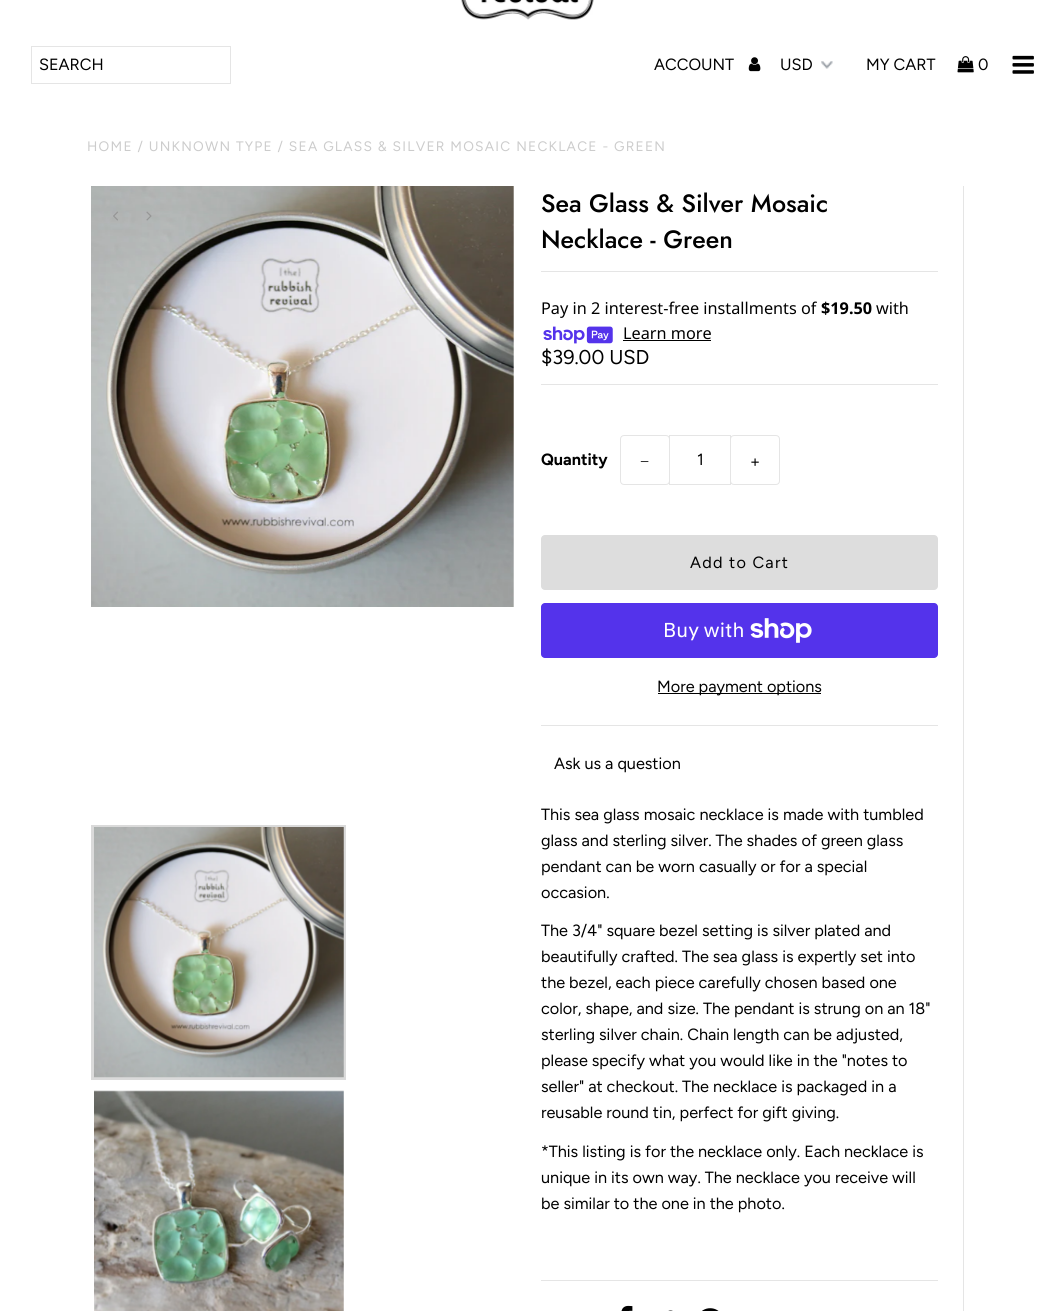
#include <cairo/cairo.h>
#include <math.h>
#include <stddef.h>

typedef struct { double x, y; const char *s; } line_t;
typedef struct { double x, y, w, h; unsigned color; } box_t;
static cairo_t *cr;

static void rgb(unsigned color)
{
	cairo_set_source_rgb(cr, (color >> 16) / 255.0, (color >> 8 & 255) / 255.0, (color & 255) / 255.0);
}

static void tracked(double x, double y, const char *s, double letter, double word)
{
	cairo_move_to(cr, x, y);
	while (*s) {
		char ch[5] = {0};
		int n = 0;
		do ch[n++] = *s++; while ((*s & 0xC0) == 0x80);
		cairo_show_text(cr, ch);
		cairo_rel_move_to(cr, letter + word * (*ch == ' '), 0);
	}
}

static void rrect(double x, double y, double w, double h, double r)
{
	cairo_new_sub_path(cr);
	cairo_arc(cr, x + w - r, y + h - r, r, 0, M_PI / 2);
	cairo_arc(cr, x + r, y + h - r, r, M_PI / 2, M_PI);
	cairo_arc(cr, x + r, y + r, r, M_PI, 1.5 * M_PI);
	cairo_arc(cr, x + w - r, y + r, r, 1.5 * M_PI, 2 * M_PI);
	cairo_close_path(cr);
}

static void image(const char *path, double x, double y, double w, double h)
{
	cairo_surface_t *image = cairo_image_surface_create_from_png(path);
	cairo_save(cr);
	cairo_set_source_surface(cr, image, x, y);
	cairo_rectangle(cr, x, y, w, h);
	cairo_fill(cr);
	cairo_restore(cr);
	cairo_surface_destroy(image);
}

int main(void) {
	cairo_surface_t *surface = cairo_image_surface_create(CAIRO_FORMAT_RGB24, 1054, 1311);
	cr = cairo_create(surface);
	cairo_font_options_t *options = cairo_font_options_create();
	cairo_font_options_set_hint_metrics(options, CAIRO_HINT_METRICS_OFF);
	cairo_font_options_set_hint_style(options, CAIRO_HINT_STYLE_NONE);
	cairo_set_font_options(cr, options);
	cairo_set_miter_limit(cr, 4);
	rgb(0xffffff);
	cairo_paint(cr);
	image("img/1.png", 461, 0, 133, 20);
	cairo_rectangle(cr, 31.5, 46.5, 199, 37);
	rgb(0xe5e5e5);
	cairo_set_line_width(cr, 1);
	cairo_stroke(cr);
	image("img/2.png", 748, 57, 13, 15);
	image("img/3.png", 821, 61, 12, 8);
	image("img/4.png", 957, 56, 17, 17);
	image("img/5.png", 1012, 55, 22, 19);
	image("img/6.png", 91, 186, 423, 421);
	image("img/7.png", 113, 211, 5, 10);
	image("img/8.png", 146, 211, 6, 10);
	cairo_rectangle(cr, 92.5, 826.5, 252, 252);
	rgb(0xdadada);
	cairo_set_line_width(cr, 3);
	cairo_stroke(cr);
	image("img/9.png", 94, 827, 250, 251);
	image("img/10.png", 94, 1090, 250, 221);
	{
		static const box_t items[] = {
			{963, 186, 1, 1125, 0xe5e5e5},
			{541, 271, 397, 1, 0xe5e5e5},
			{541, 725, 397, 1, 0xe5e5e5},
		};
		for (size_t i = 0; i < sizeof items / sizeof *items; i++) {
			rgb(items[i].color);
			cairo_rectangle(cr, items[i].x, items[i].y, items[i].w, items[i].h);
			cairo_fill(cr);
		}
	}
	image("img/11.png", 543, 326, 70, 18);
	rgb(0x000000);
	cairo_rectangle(cr, 623, 340, 88, 1);
	cairo_fill(cr);
	rgb(0xe5e5e5);
	cairo_rectangle(cr, 541, 384, 397, 1);
	cairo_fill(cr);
	rrect(620.5, 435.5, 49, 49, 3.5);
	cairo_set_line_width(cr, 1);
	cairo_stroke(cr);
	cairo_rectangle(cr, 669.5, 435.5, 61, 49);
	cairo_stroke(cr);
	rrect(730.5, 435.5, 49, 49, 3.5);
	cairo_stroke(cr);
	rgb(0xdddddd);
	rrect(541, 535, 397, 55, 4);
	cairo_fill(cr);
	rgb(0x5433eb);
	rrect(541, 603, 397, 55, 4);
	cairo_fill(cr);
	image("img/12.png", 750, 618, 62, 25);
	rgb(0x000000);
	cairo_rectangle(cr, 658, 693, 163, 1);
	cairo_fill(cr);
	rgb(0xe5e5e5);
	cairo_rectangle(cr, 541, 1280, 397, 1);
	cairo_fill(cr);
	image("img/13.png", 621, 1305, 12, 6);
	image("img/14.png", 668, 1310, 5, 1);
	image("img/15.png", 702, 1308, 17, 3);
	cairo_select_font_face(cr, "Figtree", CAIRO_FONT_SLANT_NORMAL, CAIRO_FONT_WEIGHT_NORMAL);
	cairo_set_font_size(cr, 16.25);
	rgb(0x000000);
	{
		static const line_t items[] = {
			{39, 70, "SEARCH"},
			{654, 70, "ACCOUNT"},
			{780, 70, "USD"},
			{866, 70, "MY CART"},
			{978, 70, "0"},
		};
		for (size_t i = 0; i < sizeof items / sizeof *items; i++) {
			cairo_move_to(cr, items[i].x, items[i].y);
			cairo_show_text(cr, items[i].s);
		}
	}
	cairo_set_font_size(cr, 13.75);
	rgb(0xcccccc);
	tracked(87, 151, "HOME / UNKNOWN TYPE / SEA GLASS & SILVER MOSAIC NECKLACE - GREEN", 1.25, 0);
	cairo_select_font_face(cr, "Jost Medium", CAIRO_FONT_SLANT_NORMAL, CAIRO_FONT_WEIGHT_NORMAL);
	cairo_set_font_size(cr, 25);
	rgb(0x000000);
	cairo_move_to(cr, 541, 212);
	cairo_show_text(cr, "Sea Glass & Silver Mosaic");
	cairo_move_to(cr, 541, 248);
	cairo_show_text(cr, "Necklace - Green");
	cairo_select_font_face(cr, "Noto Sans", CAIRO_FONT_SLANT_NORMAL, CAIRO_FONT_WEIGHT_NORMAL);
	cairo_set_font_size(cr, 16.25);
	cairo_move_to(cr, 541, 314);
	cairo_show_text(cr, "Pay in 2 interest-free installments of");
	cairo_select_font_face(cr, "Noto Sans", CAIRO_FONT_SLANT_NORMAL, CAIRO_FONT_WEIGHT_BOLD);
	cairo_move_to(cr, 821, 314);
	cairo_show_text(cr, "$19.50");
	cairo_select_font_face(cr, "Noto Sans", CAIRO_FONT_SLANT_NORMAL, CAIRO_FONT_WEIGHT_NORMAL);
	cairo_move_to(cr, 876, 314);
	cairo_show_text(cr, "with");
	cairo_move_to(cr, 623, 339);
	cairo_show_text(cr, "Learn more");
	cairo_select_font_face(cr, "Figtree", CAIRO_FONT_SLANT_NORMAL, CAIRO_FONT_WEIGHT_NORMAL);
	cairo_set_font_size(cr, 20);
	cairo_move_to(cr, 541, 364);
	cairo_show_text(cr, "$39.00 USD");
	cairo_select_font_face(cr, "Figtree", CAIRO_FONT_SLANT_NORMAL, CAIRO_FONT_WEIGHT_BOLD);
	cairo_set_font_size(cr, 16.25);
	cairo_move_to(cr, 541, 465);
	cairo_show_text(cr, "Quantity");
	cairo_select_font_face(cr, "Liberation Serif", CAIRO_FONT_SLANT_NORMAL, CAIRO_FONT_WEIGHT_NORMAL);
	tracked(640, 467, "−", 1.25, 0);
	cairo_select_font_face(cr, "Figtree", CAIRO_FONT_SLANT_NORMAL, CAIRO_FONT_WEIGHT_NORMAL);
	cairo_move_to(cr, 697, 465);
	cairo_show_text(cr, "1");
	tracked(750, 467, "+", 1.25, 0);
	tracked(690, 568, "Add to Cart", 1.25, 0);
	cairo_select_font_face(cr, "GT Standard", CAIRO_FONT_SLANT_NORMAL, CAIRO_FONT_WEIGHT_NORMAL);
	cairo_set_font_size(cr, 20);
	rgb(0xffffff);
	cairo_move_to(cr, 663, 637);
	cairo_show_text(cr, "Buy with");
	cairo_select_font_face(cr, "Figtree", CAIRO_FONT_SLANT_NORMAL, CAIRO_FONT_WEIGHT_NORMAL);
	cairo_set_font_size(cr, 16.25);
	rgb(0x000000);
	{
		static const line_t items[] = {
			{657, 692, "More payment options"},
			{554, 769, "Ask us a question"},
			{541, 820, "This sea glass mosaic necklace is made with tumbled"},
			{541, 846, "glass and sterling silver. The shades of green glass"},
			{541, 872, "pendant can be worn casually or for a special"},
			{541, 898, "occasion."},
			{541, 936, "The 3/4\" square bezel setting is silver plated and"},
			{541, 962, "beautifully crafted. The sea glass is expertly set into"},
			{541, 988, "the bezel, each piece carefully chosen based one"},
			{541, 1014, "color, shape, and size. The pendant is strung on an 18\""},
			{541, 1040, "sterling silver chain. Chain length can be adjusted,"},
			{541, 1066, "please specify what you would like in the \"notes to"},
			{541, 1092, "seller\" at checkout. The necklace is packaged in a"},
			{541, 1118, "reusable round tin, perfect for gift giving."},
			{541, 1157, "*This listing is for the necklace only. Each necklace is"},
			{541, 1183, "unique in its own way. The necklace you receive will"},
			{541, 1209, "be similar to the one in the photo."},
		};
		for (size_t i = 0; i < sizeof items / sizeof *items; i++) {
			cairo_move_to(cr, items[i].x, items[i].y);
			cairo_show_text(cr, items[i].s);
		}
	}
	cairo_surface_write_to_png(surface, "page.png");
	cairo_font_options_destroy(options);
	cairo_destroy(cr);
	cairo_surface_destroy(surface);
	return 0;
}
